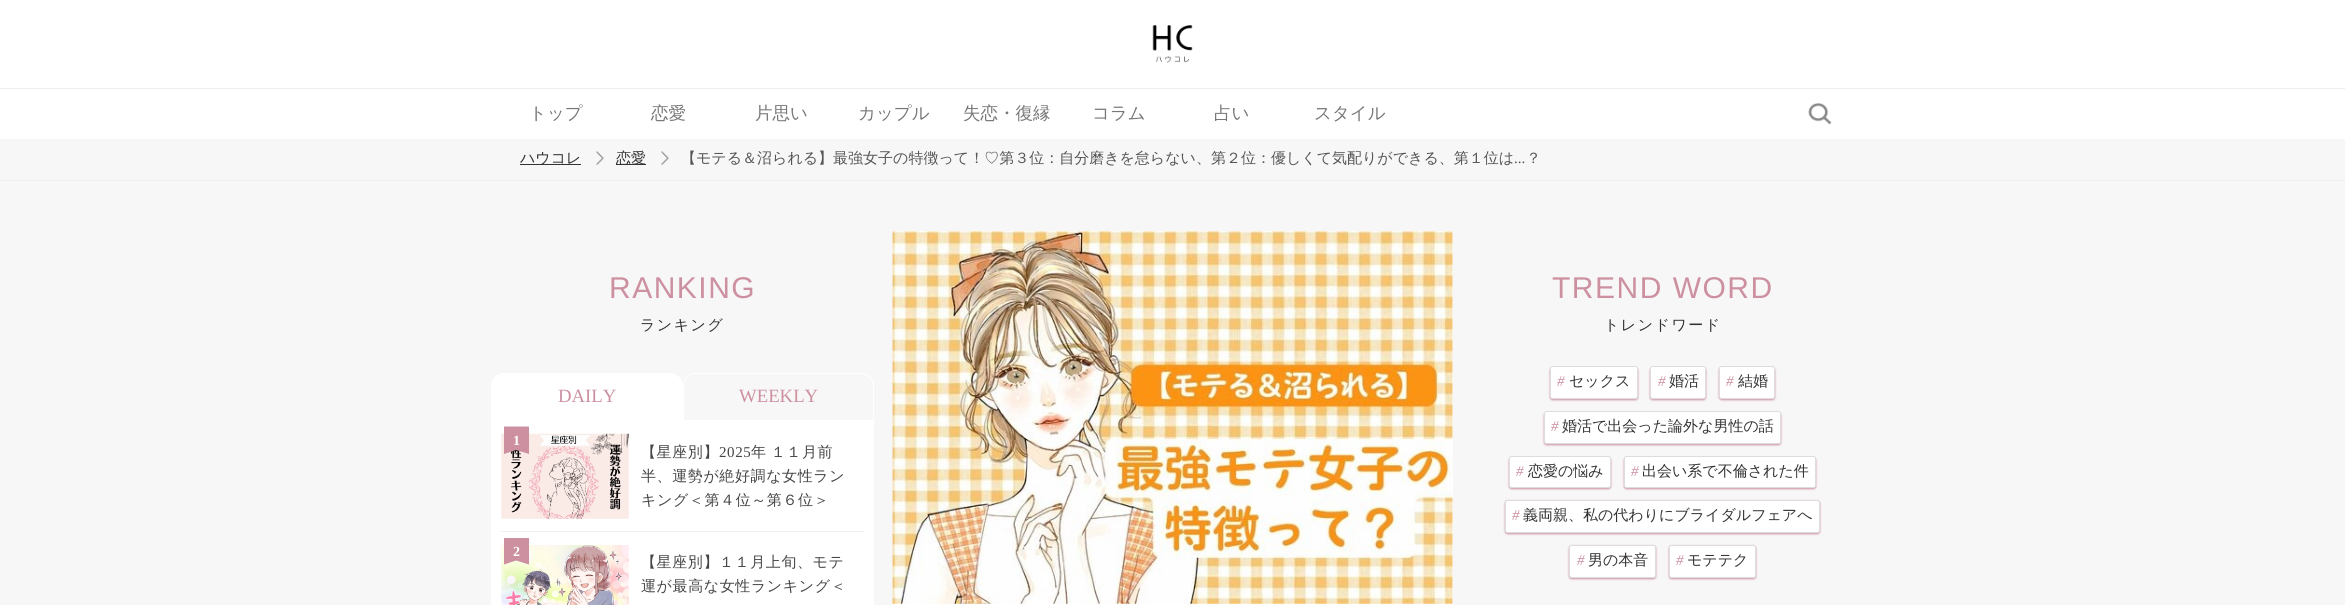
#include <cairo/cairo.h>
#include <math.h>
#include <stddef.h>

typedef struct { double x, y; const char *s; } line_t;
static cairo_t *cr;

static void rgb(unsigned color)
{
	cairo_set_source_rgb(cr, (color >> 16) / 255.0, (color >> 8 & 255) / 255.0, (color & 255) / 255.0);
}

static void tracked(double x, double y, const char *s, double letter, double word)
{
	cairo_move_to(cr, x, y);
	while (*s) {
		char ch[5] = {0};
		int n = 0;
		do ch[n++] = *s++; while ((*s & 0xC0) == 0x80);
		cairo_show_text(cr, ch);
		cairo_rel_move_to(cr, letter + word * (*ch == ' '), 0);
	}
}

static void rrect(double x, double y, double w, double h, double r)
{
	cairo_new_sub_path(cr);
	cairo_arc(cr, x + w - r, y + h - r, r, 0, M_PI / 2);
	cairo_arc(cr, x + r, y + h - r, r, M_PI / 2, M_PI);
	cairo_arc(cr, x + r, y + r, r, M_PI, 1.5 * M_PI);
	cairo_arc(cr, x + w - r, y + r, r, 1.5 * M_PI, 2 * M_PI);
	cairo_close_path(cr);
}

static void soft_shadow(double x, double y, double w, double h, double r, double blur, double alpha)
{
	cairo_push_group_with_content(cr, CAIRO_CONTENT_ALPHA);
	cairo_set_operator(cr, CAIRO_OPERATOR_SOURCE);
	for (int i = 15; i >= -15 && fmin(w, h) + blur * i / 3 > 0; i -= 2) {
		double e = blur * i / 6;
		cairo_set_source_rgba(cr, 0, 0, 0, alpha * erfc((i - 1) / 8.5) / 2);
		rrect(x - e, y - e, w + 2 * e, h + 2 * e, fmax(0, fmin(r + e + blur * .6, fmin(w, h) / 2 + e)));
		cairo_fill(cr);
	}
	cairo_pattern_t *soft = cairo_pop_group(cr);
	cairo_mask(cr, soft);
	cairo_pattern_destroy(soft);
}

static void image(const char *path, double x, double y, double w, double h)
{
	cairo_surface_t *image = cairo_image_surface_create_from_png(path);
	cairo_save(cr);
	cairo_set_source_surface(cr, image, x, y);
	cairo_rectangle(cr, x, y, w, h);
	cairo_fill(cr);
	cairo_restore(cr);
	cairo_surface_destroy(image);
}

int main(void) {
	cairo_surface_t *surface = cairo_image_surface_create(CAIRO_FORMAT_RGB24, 2345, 605);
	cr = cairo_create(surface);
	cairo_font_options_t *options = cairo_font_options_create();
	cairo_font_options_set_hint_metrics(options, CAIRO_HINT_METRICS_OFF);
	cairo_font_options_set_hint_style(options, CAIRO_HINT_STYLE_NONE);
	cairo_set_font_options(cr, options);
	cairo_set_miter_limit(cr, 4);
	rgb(0xf8f7f7);
	cairo_paint(cr);
	rgb(0xffffff);
	cairo_rectangle(cr, 0, 0, 2345, 88);
	cairo_fill(cr);
	rgb(0xeeeeee);
	cairo_rectangle(cr, 0, 88, 2345, 1);
	cairo_fill(cr);
	image("img/1.png", 1152, 25, 41, 38);
	rgb(0xffffff);
	cairo_rectangle(cr, 0, 89, 2345, 50);
	cairo_fill(cr);
	image("img/2.png", 1808, 103, 24, 22);
	image("img/3.png", 596, 151, 8, 14);
	rgb(0x333333);
	cairo_rectangle(cr, 520, 164, 61, 1);
	cairo_fill(cr);
	image("img/3.png", 661, 151, 8, 14);
	cairo_rectangle(cr, 616, 164, 30, 1);
	cairo_fill(cr);
	rgb(0xeeeeee);
	cairo_rectangle(cr, 0, 180, 2345, 1);
	cairo_fill(cr);
	rgb(0xffffff);
	cairo_new_path(cr);
	cairo_move_to(cr, 504, 373);
	cairo_line_to(cr, 670, 373);
	cairo_curve_to(cr, 677, 373, 683, 379, 683, 386);
	cairo_line_to(cr, 683, 421);
	cairo_line_to(cr, 491, 421);
	cairo_line_to(cr, 491, 386);
	cairo_curve_to(cr, 491, 379, 497, 373, 504, 373);
	cairo_close_path(cr);
	cairo_fill(cr);
	cairo_new_path(cr);
	cairo_move_to(cr, 696, 373.5);
	cairo_line_to(cr, 861, 373.5);
	cairo_curve_to(cr, 868, 373.5, 873.5, 379, 873.5, 386);
	cairo_line_to(cr, 873.5, 420.5);
	cairo_line_to(cr, 683.5, 420.5);
	cairo_line_to(cr, 683.5, 386);
	cairo_curve_to(cr, 683.5, 379, 689, 373.5, 696, 373.5);
	cairo_close_path(cr);
	cairo_set_line_width(cr, 1);
	cairo_stroke(cr);
	cairo_rectangle(cr, 491, 421, 383, 184);
	cairo_fill(cr);
	rgb(0xf1f1f1);
	cairo_rectangle(cr, 501, 531, 363, 1);
	cairo_fill(cr);
	image("img/4.png", 501, 433, 128, 86);
	rgb(0xcc90a0);
	cairo_new_path(cr);
	cairo_move_to(cr, 504, 454);
	cairo_line_to(cr, 504, 426.5);
	cairo_line_to(cr, 529, 426.5);
	cairo_line_to(cr, 529, 454);
	cairo_line_to(cr, 516, 450);
	cairo_close_path(cr);
	cairo_fill(cr);
	image("img/5.png", 501, 545, 128, 60);
	cairo_new_path(cr);
	cairo_move_to(cr, 504, 538);
	cairo_line_to(cr, 529, 538);
	cairo_line_to(cr, 529, 564.5);
	cairo_line_to(cr, 516, 560.5);
	cairo_line_to(cr, 504, 564.5);
	cairo_close_path(cr);
	cairo_fill(cr);
	rgb(0xffffff);
	cairo_rectangle(cr, 893, 231, 560, 374);
	cairo_fill(cr);
	image("img/6.png", 892, 231, 561, 373);
	rgb(0xcc90a0);
	soft_shadow(1550, 368, 88, 32, 2.5, 1, 1);
	rgb(0xffffff);
	rrect(1550.5, 366.5, 87, 32, 2);
	cairo_fill_preserve(cr);
	rgb(0xdddddd);
	cairo_stroke(cr);
	rgb(0xcc90a0);
	soft_shadow(1650, 368, 56, 32, 2.5, 1, 1);
	rgb(0xffffff);
	rrect(1650.5, 366.5, 55, 32, 2);
	cairo_fill_preserve(cr);
	rgb(0xdddddd);
	cairo_stroke(cr);
	rgb(0xcc90a0);
	soft_shadow(1719, 368, 56, 32, 2.5, 1, 1);
	rgb(0xffffff);
	rrect(1719.5, 366.5, 55, 32, 2);
	cairo_fill_preserve(cr);
	rgb(0xdddddd);
	cairo_stroke(cr);
	rgb(0xcc90a0);
	soft_shadow(1544, 413, 237, 32, 2.5, 1, 1);
	rgb(0xffffff);
	rrect(1544.5, 411.5, 236, 32, 2);
	cairo_fill_preserve(cr);
	rgb(0xdddddd);
	cairo_stroke(cr);
	rgb(0xcc90a0);
	soft_shadow(1509, 458, 102, 31, 2.5, 1, 1);
	rgb(0xffffff);
	rrect(1509.5, 456.5, 101, 31, 2);
	cairo_fill_preserve(cr);
	rgb(0xdddddd);
	cairo_stroke(cr);
	rgb(0xcc90a0);
	soft_shadow(1624, 458, 192, 31, 2.5, 1, 1);
	rgb(0xffffff);
	rrect(1624.5, 456.5, 191, 31, 2);
	cairo_fill_preserve(cr);
	rgb(0xdddddd);
	cairo_stroke(cr);
	rgb(0xcc90a0);
	soft_shadow(1505, 501, 315, 33, 2.5, 1, 1);
	rgb(0xffffff);
	rrect(1505.5, 500.5, 314, 32, 2);
	cairo_fill_preserve(cr);
	rgb(0xdddddd);
	cairo_stroke(cr);
	rgb(0xcc90a0);
	soft_shadow(1569, 546, 87, 33, 2.5, 1, 1);
	rgb(0xffffff);
	rrect(1569.5, 545.5, 86, 32, 2);
	cairo_fill_preserve(cr);
	rgb(0xdddddd);
	cairo_stroke(cr);
	rgb(0xcc90a0);
	soft_shadow(1669, 546, 87, 33, 2.5, 1, 1);
	rgb(0xffffff);
	rrect(1669.5, 545.5, 86, 32, 2);
	cairo_fill_preserve(cr);
	rgb(0xdddddd);
	cairo_stroke(cr);
	cairo_select_font_face(cr, "WenQuanYi Zen Hei Medium", CAIRO_FONT_SLANT_NORMAL, CAIRO_FONT_WEIGHT_NORMAL);
	cairo_set_font_size(cr, 17.5);
	rgb(0x777777);
	{
		static const line_t items[] = {
			{529, 119, "トップ"},
			{651, 119, "恋愛"},
			{755, 119, "片思い"},
			{858, 119, "カップル"},
			{963, 119, "失恋・復縁"},
			{1092, 119, "コラム"},
			{1214, 119, "占い"},
			{1314, 119, "スタイル"},
		};
		for (size_t i = 0; i < sizeof items / sizeof *items; i++) {
			cairo_move_to(cr, items[i].x, items[i].y);
			cairo_show_text(cr, items[i].s);
		}
	}
	cairo_set_font_size(cr, 15);
	rgb(0x333333);
	cairo_move_to(cr, 520, 163);
	cairo_show_text(cr, "ハウコレ");
	cairo_move_to(cr, 616, 163);
	cairo_show_text(cr, "恋愛");
	rgb(0x555555);
	cairo_move_to(cr, 681, 163);
	cairo_show_text(cr, "【モテる＆沼られる】最強女子の特徴って！♡第３位：自分磨きを怠らない、第２位：優しくて気配りができる、第１位は");
	cairo_select_font_face(cr, "Liberation Serif", CAIRO_FONT_SLANT_NORMAL, CAIRO_FONT_WEIGHT_NORMAL);
	cairo_move_to(cr, 1514, 163);
	cairo_show_text(cr, "...");
	cairo_select_font_face(cr, "WenQuanYi Zen Hei Medium", CAIRO_FONT_SLANT_NORMAL, CAIRO_FONT_WEIGHT_NORMAL);
	cairo_move_to(cr, 1526, 163);
	cairo_show_text(cr, "？");
	cairo_select_font_face(cr, "Liberation Sans", CAIRO_FONT_SLANT_NORMAL, CAIRO_FONT_WEIGHT_NORMAL);
	cairo_set_font_size(cr, 30);
	rgb(0xcc90a0);
	tracked(609, 298, "RANKING", 1.5, 0);
	cairo_select_font_face(cr, "WenQuanYi Zen Hei Medium", CAIRO_FONT_SLANT_NORMAL, CAIRO_FONT_WEIGHT_NORMAL);
	cairo_set_font_size(cr, 15);
	rgb(0x333333);
	tracked(640, 330, "ランキング", 1.5, 0);
	cairo_select_font_face(cr, "Liberation Serif", CAIRO_FONT_SLANT_NORMAL, CAIRO_FONT_WEIGHT_NORMAL);
	cairo_set_font_size(cr, 18.75);
	rgb(0xcc90a0);
	cairo_move_to(cr, 558, 402);
	cairo_show_text(cr, "DAILY");
	cairo_move_to(cr, 739, 402);
	cairo_show_text(cr, "WEEKLY");
	cairo_select_font_face(cr, "Liberation Serif", CAIRO_FONT_SLANT_NORMAL, CAIRO_FONT_WEIGHT_BOLD);
	cairo_set_font_size(cr, 14);
	rgb(0xffffff);
	cairo_move_to(cr, 513, 445);
	cairo_show_text(cr, "1");
	cairo_select_font_face(cr, "WenQuanYi Zen Hei Medium", CAIRO_FONT_SLANT_NORMAL, CAIRO_FONT_WEIGHT_NORMAL);
	cairo_set_font_size(cr, 15);
	rgb(0x454545);
	tracked(641, 457, "【星座別】", 0.6, 0);
	cairo_select_font_face(cr, "Liberation Serif", CAIRO_FONT_SLANT_NORMAL, CAIRO_FONT_WEIGHT_NORMAL);
	tracked(719, 457, "2025", 0.6, 0);
	cairo_select_font_face(cr, "WenQuanYi Zen Hei Medium", CAIRO_FONT_SLANT_NORMAL, CAIRO_FONT_WEIGHT_NORMAL);
	tracked(751, 457, "年 １１月前", 0.6, -1);
	tracked(641, 481, "半、運勢が絶好調な女性ラン", 0.6, 0);
	tracked(641, 505, "キング＜第４位～第６位＞", 0.6, 0);
	cairo_select_font_face(cr, "Liberation Serif", CAIRO_FONT_SLANT_NORMAL, CAIRO_FONT_WEIGHT_BOLD);
	cairo_set_font_size(cr, 14);
	rgb(0xffffff);
	cairo_move_to(cr, 513, 556);
	cairo_show_text(cr, "2");
	cairo_select_font_face(cr, "WenQuanYi Zen Hei Medium", CAIRO_FONT_SLANT_NORMAL, CAIRO_FONT_WEIGHT_NORMAL);
	cairo_set_font_size(cr, 15);
	rgb(0x454545);
	tracked(641, 567, "【星座別】１１月上旬、モテ", 0.6, 0);
	tracked(641, 591, "運が最高な女性ランキング＜", 0.6, 0);
	cairo_select_font_face(cr, "Liberation Sans", CAIRO_FONT_SLANT_NORMAL, CAIRO_FONT_WEIGHT_NORMAL);
	cairo_set_font_size(cr, 30);
	rgb(0xcc90a0);
	tracked(1552, 298, "TREND WORD", 1.5, 0);
	cairo_select_font_face(cr, "WenQuanYi Zen Hei Medium", CAIRO_FONT_SLANT_NORMAL, CAIRO_FONT_WEIGHT_NORMAL);
	cairo_set_font_size(cr, 15);
	rgb(0x333333);
	tracked(1604, 330, "トレンドワード", 1.5, 0);
	cairo_select_font_face(cr, "Liberation Serif", CAIRO_FONT_SLANT_ITALIC, CAIRO_FONT_WEIGHT_NORMAL);
	rgb(0xcc90a0);
	cairo_move_to(cr, 1557, 386);
	cairo_show_text(cr, "#");
	cairo_select_font_face(cr, "WenQuanYi Zen Hei Medium", CAIRO_FONT_SLANT_NORMAL, CAIRO_FONT_WEIGHT_NORMAL);
	rgb(0x333333);
	cairo_move_to(cr, 1569, 386);
	cairo_show_text(cr, "セックス");
	cairo_select_font_face(cr, "Liberation Serif", CAIRO_FONT_SLANT_ITALIC, CAIRO_FONT_WEIGHT_NORMAL);
	rgb(0xcc90a0);
	cairo_move_to(cr, 1658, 386);
	cairo_show_text(cr, "#");
	cairo_select_font_face(cr, "WenQuanYi Zen Hei Medium", CAIRO_FONT_SLANT_NORMAL, CAIRO_FONT_WEIGHT_NORMAL);
	rgb(0x333333);
	cairo_move_to(cr, 1669, 386);
	cairo_show_text(cr, "婚活");
	cairo_select_font_face(cr, "Liberation Serif", CAIRO_FONT_SLANT_ITALIC, CAIRO_FONT_WEIGHT_NORMAL);
	rgb(0xcc90a0);
	cairo_move_to(cr, 1726, 386);
	cairo_show_text(cr, "#");
	cairo_select_font_face(cr, "WenQuanYi Zen Hei Medium", CAIRO_FONT_SLANT_NORMAL, CAIRO_FONT_WEIGHT_NORMAL);
	rgb(0x333333);
	cairo_move_to(cr, 1738, 386);
	cairo_show_text(cr, "結婚");
	cairo_select_font_face(cr, "Liberation Serif", CAIRO_FONT_SLANT_ITALIC, CAIRO_FONT_WEIGHT_NORMAL);
	rgb(0xcc90a0);
	cairo_move_to(cr, 1551, 431);
	cairo_show_text(cr, "#");
	cairo_select_font_face(cr, "WenQuanYi Zen Hei Medium", CAIRO_FONT_SLANT_NORMAL, CAIRO_FONT_WEIGHT_NORMAL);
	rgb(0x333333);
	cairo_move_to(cr, 1562, 431);
	cairo_show_text(cr, "婚活で出会った論外な男性の話");
	cairo_select_font_face(cr, "Liberation Serif", CAIRO_FONT_SLANT_ITALIC, CAIRO_FONT_WEIGHT_NORMAL);
	rgb(0xcc90a0);
	cairo_move_to(cr, 1516, 476);
	cairo_show_text(cr, "#");
	cairo_select_font_face(cr, "WenQuanYi Zen Hei Medium", CAIRO_FONT_SLANT_NORMAL, CAIRO_FONT_WEIGHT_NORMAL);
	rgb(0x333333);
	cairo_move_to(cr, 1528, 476);
	cairo_show_text(cr, "恋愛の悩み");
	cairo_select_font_face(cr, "Liberation Serif", CAIRO_FONT_SLANT_ITALIC, CAIRO_FONT_WEIGHT_NORMAL);
	rgb(0xcc90a0);
	cairo_move_to(cr, 1631, 476);
	cairo_show_text(cr, "#");
	cairo_select_font_face(cr, "WenQuanYi Zen Hei Medium", CAIRO_FONT_SLANT_NORMAL, CAIRO_FONT_WEIGHT_NORMAL);
	rgb(0x333333);
	cairo_move_to(cr, 1642, 476);
	cairo_show_text(cr, "出会い系で不倫された件");
	cairo_select_font_face(cr, "Liberation Serif", CAIRO_FONT_SLANT_ITALIC, CAIRO_FONT_WEIGHT_NORMAL);
	rgb(0xcc90a0);
	cairo_move_to(cr, 1512, 520);
	cairo_show_text(cr, "#");
	cairo_select_font_face(cr, "WenQuanYi Zen Hei Medium", CAIRO_FONT_SLANT_NORMAL, CAIRO_FONT_WEIGHT_NORMAL);
	rgb(0x333333);
	cairo_move_to(cr, 1523, 520);
	cairo_show_text(cr, "義両親、私の代わりにブライダルフェアへ");
	cairo_select_font_face(cr, "Liberation Serif", CAIRO_FONT_SLANT_ITALIC, CAIRO_FONT_WEIGHT_NORMAL);
	rgb(0xcc90a0);
	cairo_move_to(cr, 1577, 565);
	cairo_show_text(cr, "#");
	cairo_select_font_face(cr, "WenQuanYi Zen Hei Medium", CAIRO_FONT_SLANT_NORMAL, CAIRO_FONT_WEIGHT_NORMAL);
	rgb(0x333333);
	cairo_move_to(cr, 1588, 565);
	cairo_show_text(cr, "男の本音");
	cairo_select_font_face(cr, "Liberation Serif", CAIRO_FONT_SLANT_ITALIC, CAIRO_FONT_WEIGHT_NORMAL);
	rgb(0xcc90a0);
	cairo_move_to(cr, 1676, 565);
	cairo_show_text(cr, "#");
	cairo_select_font_face(cr, "WenQuanYi Zen Hei Medium", CAIRO_FONT_SLANT_NORMAL, CAIRO_FONT_WEIGHT_NORMAL);
	rgb(0x333333);
	cairo_move_to(cr, 1687, 565);
	cairo_show_text(cr, "モテテク");
	cairo_surface_write_to_png(surface, "page.png");
	cairo_font_options_destroy(options);
	cairo_destroy(cr);
	cairo_surface_destroy(surface);
	return 0;
}
